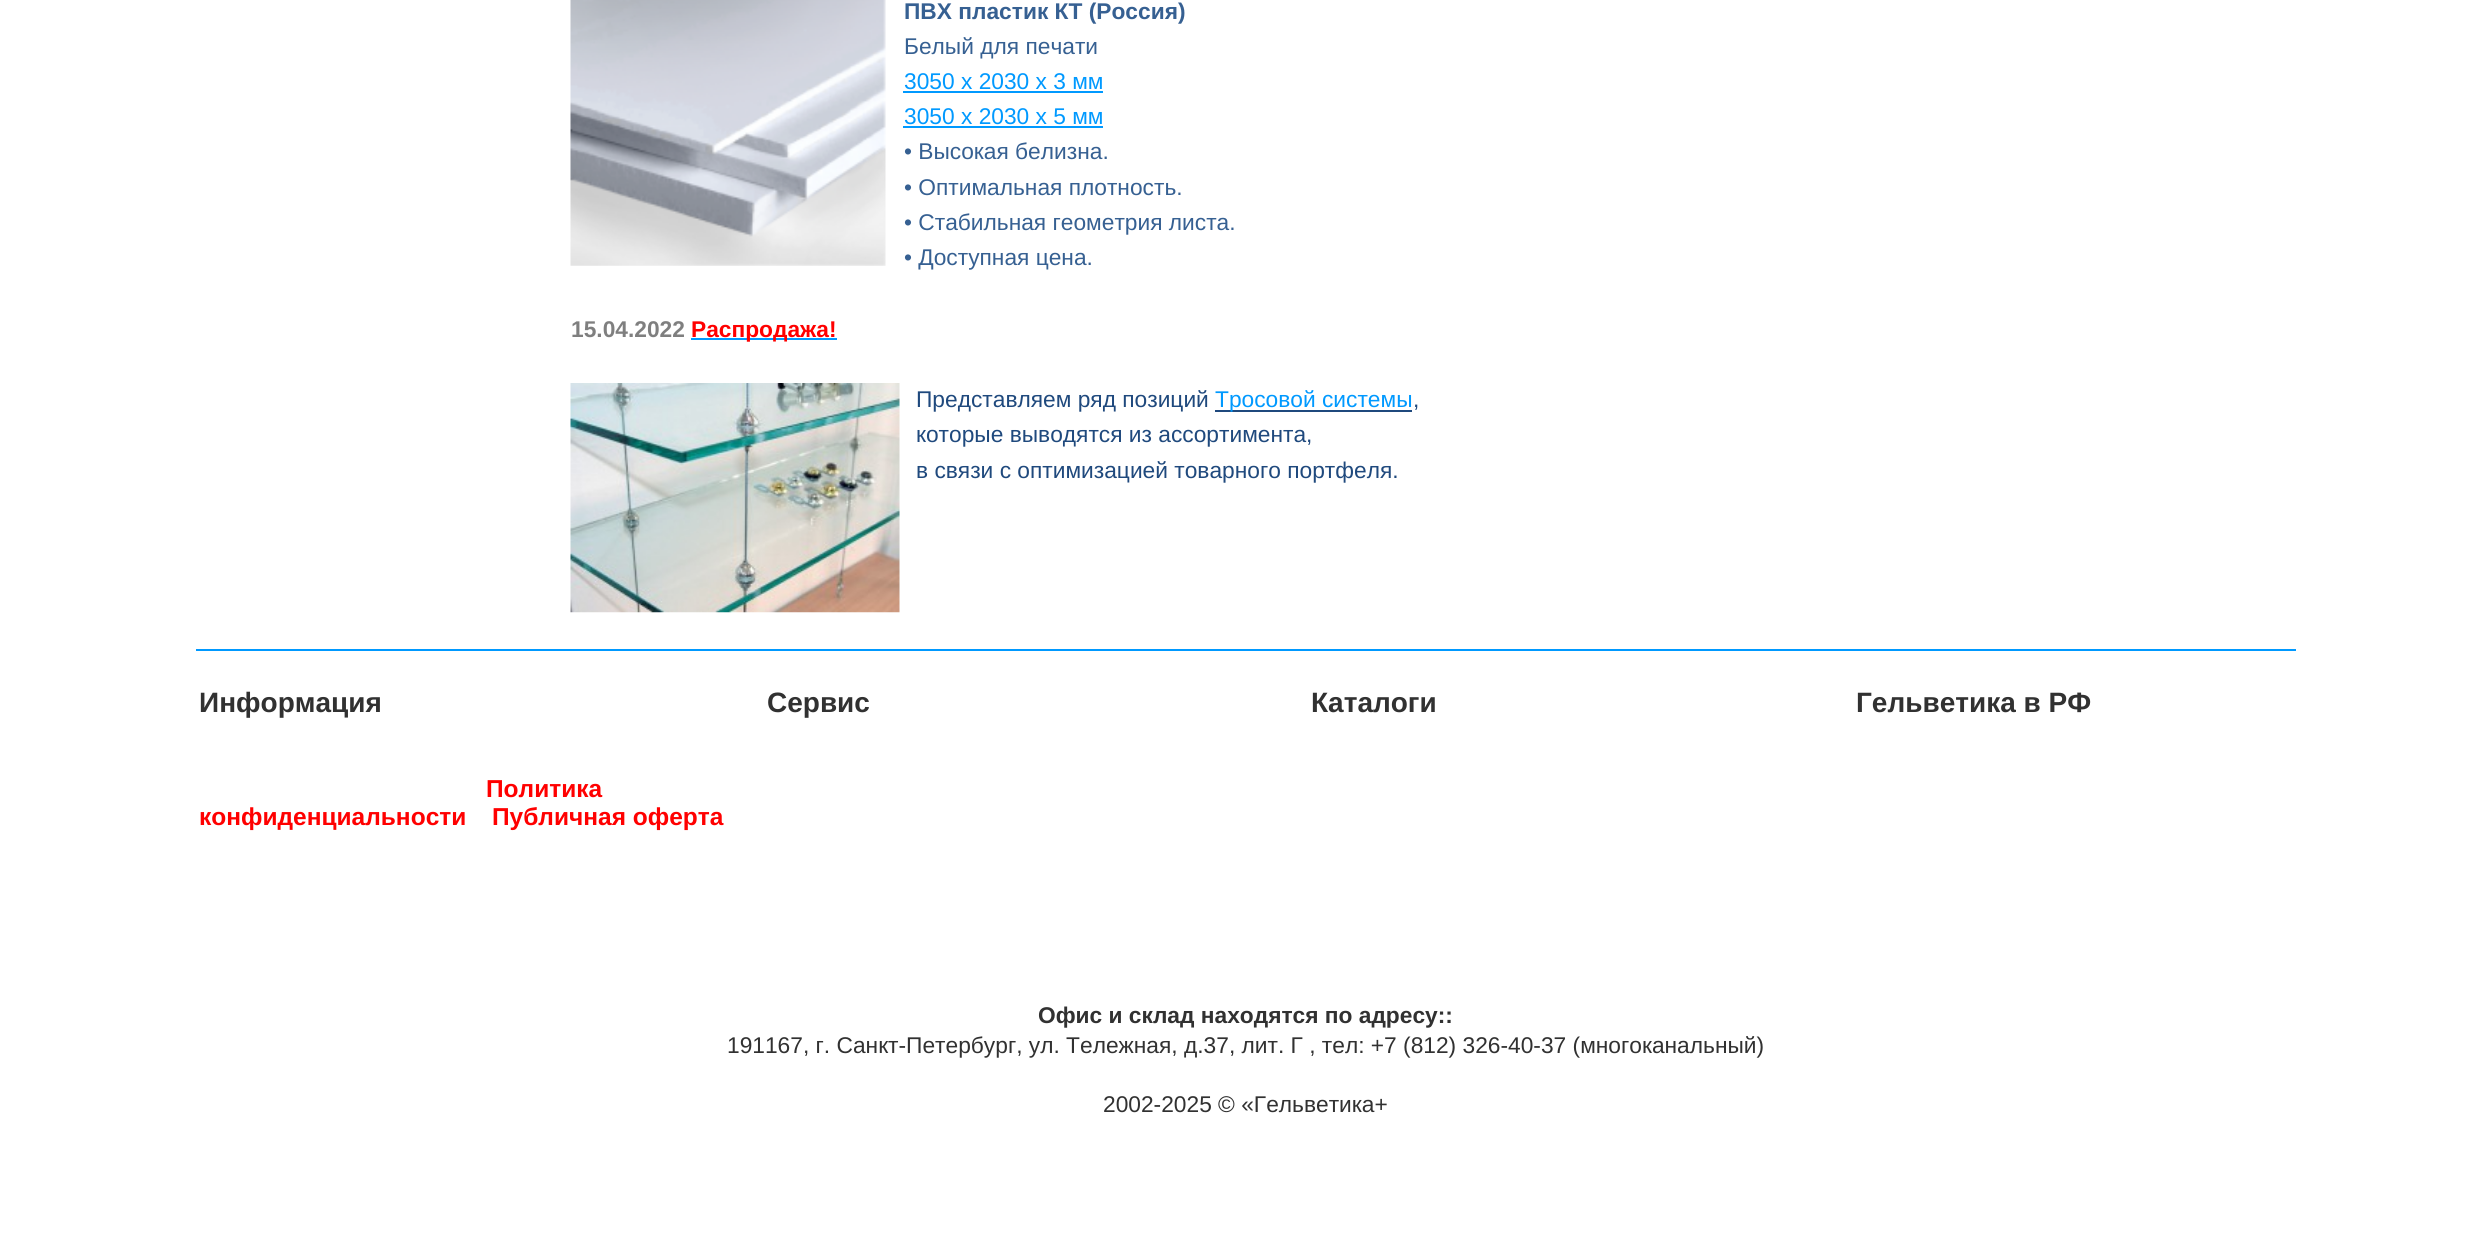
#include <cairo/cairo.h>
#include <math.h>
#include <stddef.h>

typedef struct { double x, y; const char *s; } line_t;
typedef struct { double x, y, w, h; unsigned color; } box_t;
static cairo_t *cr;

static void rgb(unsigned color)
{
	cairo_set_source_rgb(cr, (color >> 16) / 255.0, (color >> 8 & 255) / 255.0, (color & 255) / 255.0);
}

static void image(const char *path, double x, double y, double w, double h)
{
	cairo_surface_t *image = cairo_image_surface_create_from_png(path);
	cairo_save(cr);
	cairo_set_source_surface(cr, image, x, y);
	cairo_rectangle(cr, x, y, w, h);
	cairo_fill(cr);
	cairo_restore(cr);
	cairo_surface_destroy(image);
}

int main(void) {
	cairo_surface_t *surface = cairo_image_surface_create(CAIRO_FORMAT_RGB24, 2489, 1242);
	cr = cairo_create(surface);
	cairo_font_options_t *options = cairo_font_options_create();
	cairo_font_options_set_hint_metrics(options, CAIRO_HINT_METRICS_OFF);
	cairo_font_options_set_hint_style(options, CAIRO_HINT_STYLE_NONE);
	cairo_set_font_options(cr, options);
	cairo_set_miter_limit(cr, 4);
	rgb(0xffffff);
	cairo_paint(cr);
	image("img/1.png", 570, 0, 316, 266);
	{
		static const box_t items[] = {
			{903, 91, 200, 2, 0x0099ff},
			{903, 126, 200, 2, 0x0099ff},
			{691, 338, 146, 2, 0x0099ff},
		};
		for (size_t i = 0; i < sizeof items / sizeof *items; i++) {
			rgb(items[i].color);
			cairo_rectangle(cr, items[i].x, items[i].y, items[i].w, items[i].h);
			cairo_fill(cr);
		}
	}
	image("img/2.png", 570, 383, 330, 230);
	rgb(0x1f497d);
	cairo_rectangle(cr, 1215, 410, 197, 2);
	cairo_fill(cr);
	rgb(0x0099ff);
	cairo_rectangle(cr, 196, 649, 2100, 2);
	cairo_fill(cr);
	cairo_select_font_face(cr, "Liberation Sans", CAIRO_FONT_SLANT_NORMAL, CAIRO_FONT_WEIGHT_BOLD);
	cairo_set_font_size(cr, 22.75);
	rgb(0x366092);
	cairo_move_to(cr, 904, 19);
	cairo_show_text(cr, "ПВХ пластик КТ (Россия)");
	cairo_select_font_face(cr, "Liberation Sans", CAIRO_FONT_SLANT_NORMAL, CAIRO_FONT_WEIGHT_NORMAL);
	cairo_move_to(cr, 904, 54);
	cairo_show_text(cr, "Белый для печати");
	rgb(0x0099ff);
	cairo_move_to(cr, 904, 89);
	cairo_show_text(cr, "3050 х 2030 х 3 мм");
	cairo_move_to(cr, 904, 124);
	cairo_show_text(cr, "3050 х 2030 х 5 мм");
	rgb(0x366092);
	{
		static const line_t items[] = {
			{904, 159, "• Высокая белизна."},
			{904, 195, "• Оптимальная плотность."},
			{904, 230, "• Стабильная геометрия листа."},
			{904, 265, "• Доступная цена."},
		};
		for (size_t i = 0; i < sizeof items / sizeof *items; i++) {
			cairo_move_to(cr, items[i].x, items[i].y);
			cairo_show_text(cr, items[i].s);
		}
	}
	cairo_select_font_face(cr, "Liberation Sans", CAIRO_FONT_SLANT_NORMAL, CAIRO_FONT_WEIGHT_BOLD);
	rgb(0x7f7f7f);
	cairo_move_to(cr, 571, 337);
	cairo_show_text(cr, "15.04.2022");
	rgb(0xff0000);
	cairo_move_to(cr, 691, 337);
	cairo_show_text(cr, "Распродажа!");
	cairo_select_font_face(cr, "Liberation Sans", CAIRO_FONT_SLANT_NORMAL, CAIRO_FONT_WEIGHT_NORMAL);
	rgb(0x1f497d);
	cairo_move_to(cr, 916, 407);
	cairo_show_text(cr, "Представляем ряд позиций");
	rgb(0x0099ff);
	cairo_move_to(cr, 1215, 407);
	cairo_show_text(cr, "Тросовой системы");
	rgb(0x1f497d);
	{
		static const line_t items[] = {
			{1413, 407, ","},
			{916, 442, "которые выводятся из ассортимента,"},
			{916, 478, "в связи с оптимизацией товарного портфеля."},
		};
		for (size_t i = 0; i < sizeof items / sizeof *items; i++) {
			cairo_move_to(cr, items[i].x, items[i].y);
			cairo_show_text(cr, items[i].s);
		}
	}
	cairo_select_font_face(cr, "Liberation Sans", CAIRO_FONT_SLANT_NORMAL, CAIRO_FONT_WEIGHT_BOLD);
	cairo_set_font_size(cr, 28);
	rgb(0x313131);
	cairo_move_to(cr, 199, 712);
	cairo_show_text(cr, "Информация");
	cairo_set_font_size(cr, 24.5);
	rgb(0xff0000);
	{
		static const line_t items[] = {
			{486, 797, "Политика"},
			{199, 825, "конфиденциальности"},
			{492, 825, "Публичная оферта"},
		};
		for (size_t i = 0; i < sizeof items / sizeof *items; i++) {
			cairo_move_to(cr, items[i].x, items[i].y);
			cairo_show_text(cr, items[i].s);
		}
	}
	cairo_set_font_size(cr, 28);
	rgb(0x313131);
	{
		static const line_t items[] = {
			{767, 712, "Сервис"},
			{1311, 712, "Каталоги"},
			{1856, 712, "Гельветика в РФ"},
		};
		for (size_t i = 0; i < sizeof items / sizeof *items; i++) {
			cairo_move_to(cr, items[i].x, items[i].y);
			cairo_show_text(cr, items[i].s);
		}
	}
	cairo_set_font_size(cr, 22.75);
	cairo_move_to(cr, 1038, 1023);
	cairo_show_text(cr, "Офис и склад находятся по адресу::");
	cairo_select_font_face(cr, "Liberation Sans", CAIRO_FONT_SLANT_NORMAL, CAIRO_FONT_WEIGHT_NORMAL);
	cairo_move_to(cr, 727, 1053);
	cairo_show_text(cr, "191167, г. Санкт-Петербург, ул. Тележная, д.37, лит. Г , тел: +7 (812) 326-40-37 (многоканальный)");
	cairo_move_to(cr, 1103, 1112);
	cairo_show_text(cr, "2002-2025 © «Гельветика+");
	cairo_surface_write_to_png(surface, "page.png");
	cairo_font_options_destroy(options);
	cairo_destroy(cr);
	cairo_surface_destroy(surface);
	return 0;
}
